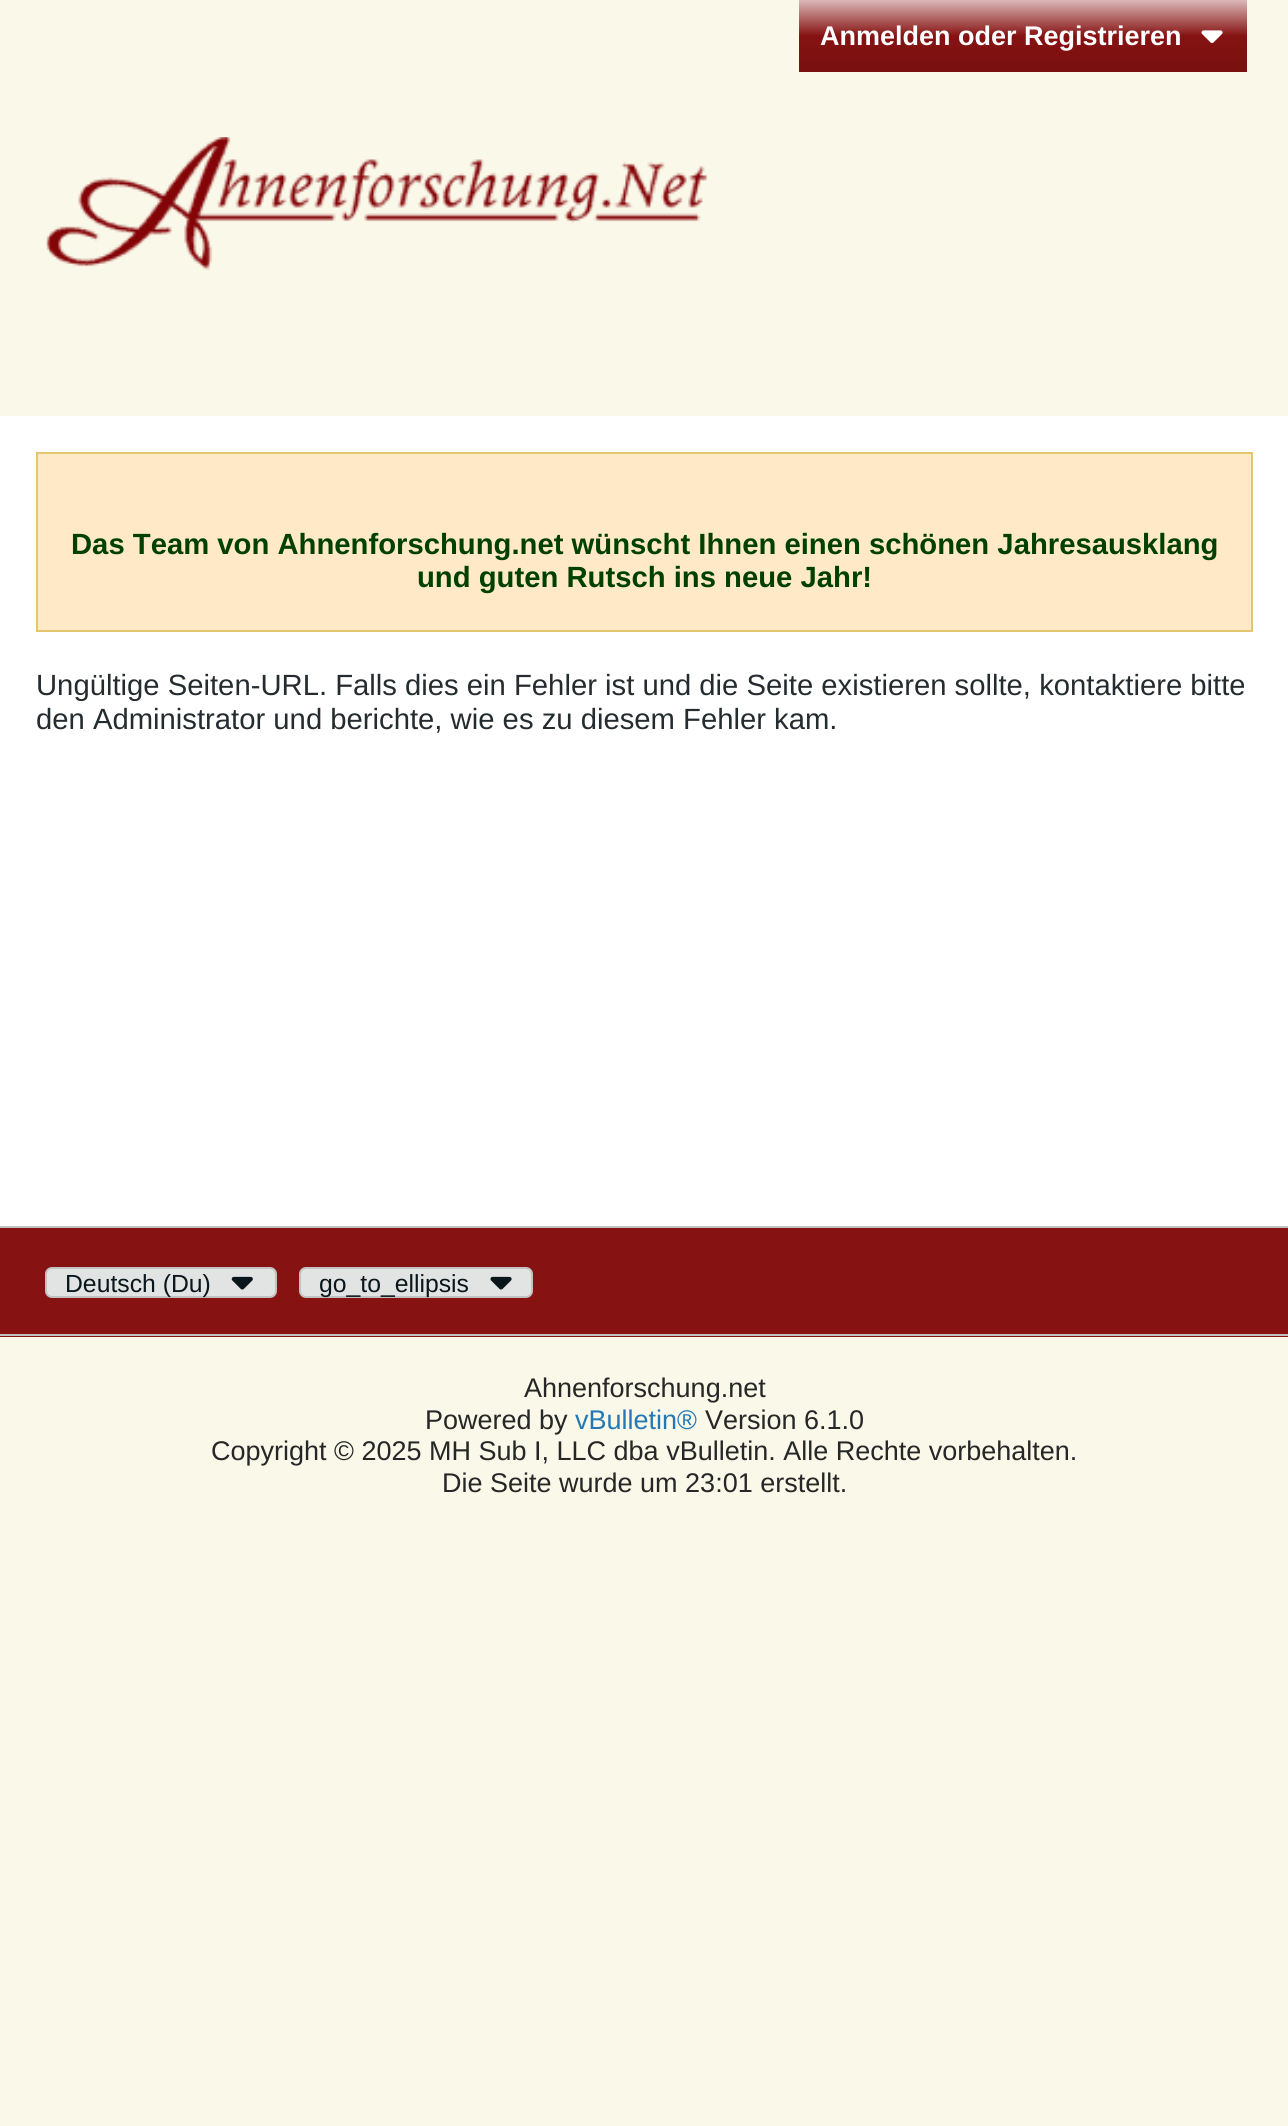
#include <cairo/cairo.h>
#include <math.h>
#include <stddef.h>

typedef struct { double x, y; const char *s; } line_t;
typedef struct { double x, y, w, h; unsigned color; } box_t;
static cairo_t *cr;

static void rgb(unsigned color)
{
	cairo_set_source_rgb(cr, (color >> 16) / 255.0, (color >> 8 & 255) / 255.0, (color & 255) / 255.0);
}

static void rrect(double x, double y, double w, double h, double r)
{
	cairo_new_sub_path(cr);
	cairo_arc(cr, x + w - r, y + h - r, r, 0, M_PI / 2);
	cairo_arc(cr, x + r, y + h - r, r, M_PI / 2, M_PI);
	cairo_arc(cr, x + r, y + r, r, M_PI, 1.5 * M_PI);
	cairo_arc(cr, x + w - r, y + r, r, 1.5 * M_PI, 2 * M_PI);
	cairo_close_path(cr);
}

static void image(const char *path, double x, double y, double w, double h)
{
	cairo_surface_t *image = cairo_image_surface_create_from_png(path);
	cairo_save(cr);
	cairo_set_source_surface(cr, image, x, y);
	cairo_rectangle(cr, x, y, w, h);
	cairo_fill(cr);
	cairo_restore(cr);
	cairo_surface_destroy(image);
}

int main(void) {
	cairo_surface_t *surface = cairo_image_surface_create(CAIRO_FORMAT_RGB24, 1288, 2126);
	cr = cairo_create(surface);
	cairo_font_options_t *options = cairo_font_options_create();
	cairo_font_options_set_hint_metrics(options, CAIRO_HINT_METRICS_OFF);
	cairo_font_options_set_hint_style(options, CAIRO_HINT_STYLE_NONE);
	cairo_set_font_options(cr, options);
	cairo_set_miter_limit(cr, 4);
	cairo_pattern_t *gradient;
	rgb(0xf9f8e9);
	cairo_paint(cr);
	gradient = cairo_pattern_create_linear(1023, 72, 1023, 0);
	cairo_pattern_add_color_stop_rgba(gradient, 0, 0.475, 0.063, 0.063, 1);
	cairo_pattern_add_color_stop_rgba(gradient, 0.5, 0.525, 0.071, 0.071, 1);
	cairo_pattern_add_color_stop_rgba(gradient, 1, 0.859, 0.722, 0.722, 1);
	cairo_set_source(cr, gradient);
	cairo_pattern_destroy(gradient);
	cairo_rectangle(cr, 799, 0, 448, 72);
	cairo_fill(cr);
	image("img/1.png", 1201, 30, 22, 13);
	image("img/2.png", 46, 137, 662, 133);
	rgb(0xffffff);
	cairo_rectangle(cr, 0, 416, 1288, 810);
	cairo_fill(cr);
	rgb(0xffe9c7);
	cairo_rectangle(cr, 37, 453, 1215, 178);
	cairo_fill_preserve(cr);
	rgb(0xe4c66e);
	cairo_stroke(cr);
	{
		static const box_t items[] = {
			{0, 1228, 1288, 109, 0x861212},
			{0, 1226, 1288, 2, 0xc2c2c2},
			{0, 1334, 1288, 2, 0xc2c2c2},
		};
		for (size_t i = 0; i < sizeof items / sizeof *items; i++) {
			rgb(items[i].color);
			cairo_rectangle(cr, items[i].x, items[i].y, items[i].w, items[i].h);
			cairo_fill(cr);
		}
	}
	rgb(0xe2e3e3);
	rrect(46, 1268, 230, 29, 6);
	cairo_fill_preserve(cr);
	rgb(0xc2c2c2);
	cairo_stroke(cr);
	image("img/3.png", 231, 1276, 22, 14);
	rgb(0xe2e3e3);
	rrect(300, 1268, 232, 29, 6);
	cairo_fill_preserve(cr);
	rgb(0xc2c2c2);
	cairo_stroke(cr);
	image("img/4.png", 490, 1276, 22, 14);
	cairo_select_font_face(cr, "Liberation Sans", CAIRO_FONT_SLANT_NORMAL, CAIRO_FONT_WEIGHT_BOLD);
	cairo_set_font_size(cr, 27);
	rgb(0xffffff);
	cairo_move_to(cr, 820, 45);
	cairo_show_text(cr, "Anmelden oder Registrieren");
	cairo_set_font_size(cr, 29.25);
	rgb(0x004000);
	cairo_move_to(cr, 71, 554);
	cairo_show_text(cr, "Das Team von Ahnenforschung.net wünscht Ihnen einen schönen Jahresausklang");
	cairo_move_to(cr, 417, 587);
	cairo_show_text(cr, "und guten Rutsch ins neue Jahr!");
	cairo_select_font_face(cr, "Liberation Sans", CAIRO_FONT_SLANT_NORMAL, CAIRO_FONT_WEIGHT_NORMAL);
	rgb(0x252c2f);
	cairo_move_to(cr, 36, 695);
	cairo_show_text(cr, "Ungültige Seiten-URL. Falls dies ein Fehler ist und die Seite existieren sollte, kontaktiere bitte");
	cairo_move_to(cr, 36, 729);
	cairo_show_text(cr, "den Administrator und berichte, wie es zu diesem Fehler kam.");
	cairo_set_font_size(cr, 24.75);
	rgb(0x09161b);
	cairo_move_to(cr, 65, 1292);
	cairo_show_text(cr, "Deutsch (Du)");
	cairo_move_to(cr, 319, 1292);
	cairo_show_text(cr, "go_to_ellipsis");
	cairo_set_font_size(cr, 27);
	rgb(0x272727);
	cairo_move_to(cr, 524, 1397);
	cairo_show_text(cr, "Ahnenforschung.net");
	cairo_move_to(cr, 425, 1429);
	cairo_show_text(cr, "Powered by");
	rgb(0x2379b5);
	cairo_move_to(cr, 575, 1429);
	cairo_show_text(cr, "vBulletin®");
	rgb(0x272727);
	{
		static const line_t items[] = {
			{705, 1429, "Version 6.1.0"},
			{211, 1460, "Copyright © 2025 MH Sub I, LLC dba vBulletin. Alle Rechte vorbehalten."},
			{442, 1492, "Die Seite wurde um 23:01 erstellt."},
		};
		for (size_t i = 0; i < sizeof items / sizeof *items; i++) {
			cairo_move_to(cr, items[i].x, items[i].y);
			cairo_show_text(cr, items[i].s);
		}
	}
	cairo_surface_write_to_png(surface, "page.png");
	cairo_font_options_destroy(options);
	cairo_destroy(cr);
	cairo_surface_destroy(surface);
	return 0;
}
